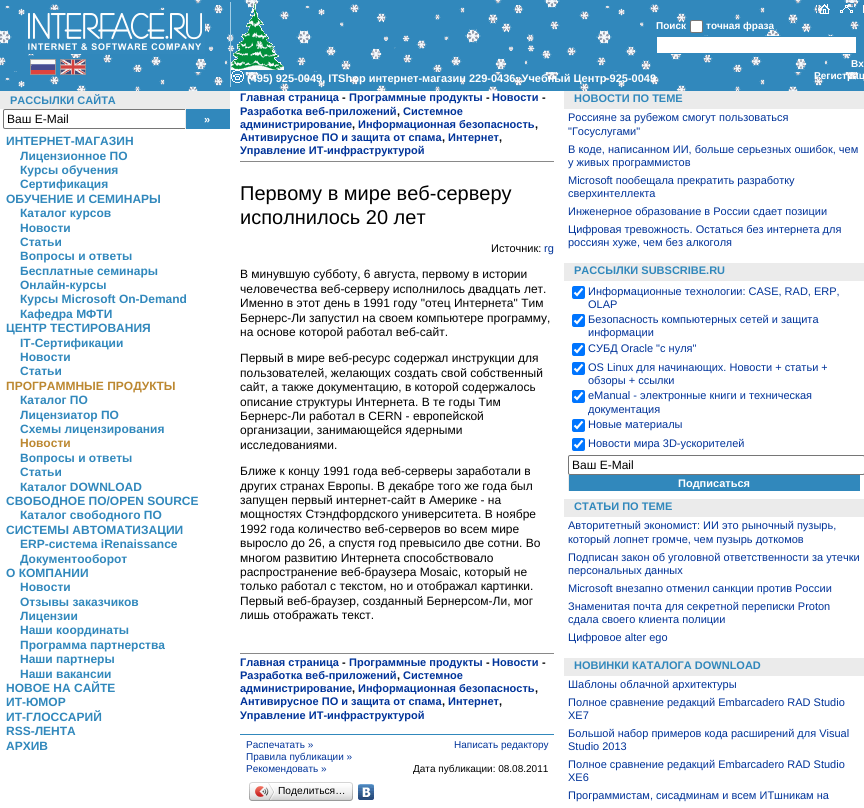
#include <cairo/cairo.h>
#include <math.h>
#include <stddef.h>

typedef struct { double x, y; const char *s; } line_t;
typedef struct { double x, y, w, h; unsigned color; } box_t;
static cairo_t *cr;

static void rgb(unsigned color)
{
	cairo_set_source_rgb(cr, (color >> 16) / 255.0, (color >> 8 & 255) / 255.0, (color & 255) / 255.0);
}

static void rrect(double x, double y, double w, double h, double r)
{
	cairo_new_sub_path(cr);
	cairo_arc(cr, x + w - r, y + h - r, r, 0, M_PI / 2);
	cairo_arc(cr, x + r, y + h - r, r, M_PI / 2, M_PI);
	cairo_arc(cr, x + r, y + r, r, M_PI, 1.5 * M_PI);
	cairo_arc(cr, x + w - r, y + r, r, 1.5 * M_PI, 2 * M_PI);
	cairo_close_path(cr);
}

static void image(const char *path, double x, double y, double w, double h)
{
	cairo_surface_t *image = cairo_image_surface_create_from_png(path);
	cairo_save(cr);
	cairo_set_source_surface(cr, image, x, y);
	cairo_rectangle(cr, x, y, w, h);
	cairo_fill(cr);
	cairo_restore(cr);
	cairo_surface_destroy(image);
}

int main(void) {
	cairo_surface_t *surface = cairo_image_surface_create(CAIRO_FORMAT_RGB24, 864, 808);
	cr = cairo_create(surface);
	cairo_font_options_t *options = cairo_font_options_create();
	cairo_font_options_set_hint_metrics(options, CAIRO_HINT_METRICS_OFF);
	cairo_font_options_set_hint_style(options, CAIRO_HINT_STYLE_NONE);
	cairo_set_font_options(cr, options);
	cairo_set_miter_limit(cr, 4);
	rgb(0xffffff);
	cairo_paint(cr);
	rgb(0x3188bc);
	cairo_rectangle(cr, 860, 0, 4, 91);
	cairo_fill(cr);
	image("img/1.png", 0, 0, 860, 91);
	image("img/2.png", 25, 10, 180, 44);
	image("img/3.png", 30, 59, 26, 16);
	cairo_rectangle(cr, 59.5, 58.5, 27, 17);
	cairo_set_line_width(cr, 1);
	cairo_stroke(cr);
	image("img/4.png", 60, 59, 26, 16);
	rgb(0xa2cee6);
	cairo_rectangle(cr, 230, 2, 1, 85);
	cairo_fill(cr);
	image("img/5.png", 231, 2, 53, 68);
	image("img/6.png", 231, 70, 13, 13);
	cairo_rectangle(cr, 817.5, 3.5, 14, 11);
	rgb(0x3188bc);
	cairo_stroke(cr);
	image("img/7.png", 819, 4, 11, 10);
	cairo_rectangle(cr, 839.5, 3.5, 14, 11);
	cairo_stroke(cr);
	image("img/8.png", 840, 5, 13, 8);
	rgb(0xfdfdfd);
	cairo_rectangle(cr, 863, 5, 1, 8);
	cairo_fill(cr);
	rgb(0xffffff);
	rrect(690.5, 20.5, 12, 12, 1.5);
	cairo_fill_preserve(cr);
	rgb(0x767676);
	cairo_stroke(cr);
	rgb(0xffffff);
	cairo_rectangle(cr, 657, 37, 199, 16);
	cairo_fill(cr);
	cairo_rectangle(cr, 656.5, 36.5, 205, 17);
	rgb(0x3188bc);
	cairo_stroke(cr);
	rgb(0xebebeb);
	cairo_rectangle(cr, 0, 91, 230, 18);
	cairo_fill(cr);
	rrect(3.5, 109.5, 187, 19, 1.5);
	rgb(0x767676);
	cairo_stroke(cr);
	{
		static const box_t items[] = {
			{186, 109, 44, 20, 0x3188bc},
			{185, 109, 1, 20, 0xebebeb},
			{240, 161, 314, 1, 0x898989},
			{240, 653, 314, 1, 0x898989},
			{240, 734, 314, 1, 0x3188bc},
		};
		for (size_t i = 0; i < sizeof items / sizeof *items; i++) {
			rgb(items[i].color);
			cairo_rectangle(cr, items[i].x, items[i].y, items[i].w, items[i].h);
			cairo_fill(cr);
		}
	}
	image("img/9.png", 252, 782, 98, 19);
	image("img/10.png", 249, 782, 3, 19);
	image("img/11.png", 255, 783, 20, 17);
	image("img/12.png", 350, 782, 3, 19);
	image("img/13.png", 358, 784, 16, 16);
	rgb(0xebebeb);
	cairo_rectangle(cr, 564, 91, 300, 18);
	cairo_fill(cr);
	cairo_rectangle(cr, 564, 263, 300, 18);
	cairo_fill(cr);
	rgb(0x0075ff);
	rrect(572, 286, 13, 13, 2);
	cairo_fill(cr);
	cairo_new_path(cr);
	cairo_move_to(cr, 574.5, 292.5);
	cairo_line_to(cr, 577, 295);
	cairo_line_to(cr, 582.5, 288.5);
	rgb(0xffffff);
	cairo_set_line_width(cr, 2.1);
	cairo_stroke(cr);
	rgb(0x0075ff);
	rrect(572, 314, 13, 13, 2);
	cairo_fill(cr);
	cairo_new_path(cr);
	cairo_move_to(cr, 574.5, 320.5);
	cairo_line_to(cr, 577, 323);
	cairo_line_to(cr, 582.5, 316.5);
	rgb(0xffffff);
	cairo_stroke(cr);
	rgb(0x0075ff);
	rrect(572, 343, 13, 13, 2);
	cairo_fill(cr);
	cairo_new_path(cr);
	cairo_move_to(cr, 574.5, 349.5);
	cairo_line_to(cr, 577, 352);
	cairo_line_to(cr, 582.5, 345.5);
	rgb(0xffffff);
	cairo_stroke(cr);
	rgb(0x0075ff);
	rrect(572, 362, 13, 13, 2);
	cairo_fill(cr);
	cairo_new_path(cr);
	cairo_move_to(cr, 574.5, 368.5);
	cairo_line_to(cr, 577, 371);
	cairo_line_to(cr, 582.5, 364.5);
	rgb(0xffffff);
	cairo_stroke(cr);
	rgb(0x0075ff);
	rrect(572, 390, 13, 13, 2);
	cairo_fill(cr);
	cairo_new_path(cr);
	cairo_move_to(cr, 574.5, 396.5);
	cairo_line_to(cr, 577, 399);
	cairo_line_to(cr, 582.5, 392.5);
	rgb(0xffffff);
	cairo_stroke(cr);
	rgb(0x0075ff);
	rrect(572, 419, 13, 13, 2);
	cairo_fill(cr);
	cairo_new_path(cr);
	cairo_move_to(cr, 574.5, 425.5);
	cairo_line_to(cr, 577, 428);
	cairo_line_to(cr, 582.5, 421.5);
	rgb(0xffffff);
	cairo_stroke(cr);
	rgb(0x0075ff);
	rrect(572, 438, 13, 13, 2);
	cairo_fill(cr);
	cairo_new_path(cr);
	cairo_move_to(cr, 574.5, 444.5);
	cairo_line_to(cr, 577, 447);
	cairo_line_to(cr, 582.5, 440.5);
	rgb(0xffffff);
	cairo_stroke(cr);
	rrect(568.5, 455.5, 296, 19, 1.5);
	rgb(0x767676);
	cairo_set_line_width(cr, 1);
	cairo_stroke(cr);
	{
		static const box_t items[] = {
			{569, 475, 291, 16, 0x3188bc},
			{568, 475, 1, 16, 0xebebeb},
			{564, 499, 300, 18, 0xebebeb},
			{564, 658, 300, 18, 0xebebeb},
		};
		for (size_t i = 0; i < sizeof items / sizeof *items; i++) {
			rgb(items[i].color);
			cairo_rectangle(cr, items[i].x, items[i].y, items[i].w, items[i].h);
			cairo_fill(cr);
		}
	}
	cairo_select_font_face(cr, "Liberation Sans", CAIRO_FONT_SLANT_NORMAL, CAIRO_FONT_WEIGHT_BOLD);
	cairo_set_font_size(cr, 11);
	rgb(0xffffff);
	cairo_move_to(cr, 247, 82);
	cairo_show_text(cr, "(495) 925-0049, ITShop интернет-магазин 229-0436, Учебный Центр 925-0049");
	cairo_set_font_size(cr, 10);
	{
		static const line_t items[] = {
			{656, 29, "Поиск"},
			{706, 29, "точная фраза"},
			{851, 67, "Вх"},
			{814, 79, "Регистрац"},
		};
		for (size_t i = 0; i < sizeof items / sizeof *items; i++) {
			cairo_move_to(cr, items[i].x, items[i].y);
			cairo_show_text(cr, items[i].s);
		}
	}
	cairo_set_font_size(cr, 11);
	rgb(0x3188bc);
	cairo_move_to(cr, 10, 104);
	cairo_show_text(cr, "РАССЫЛКИ САЙТА");
	cairo_select_font_face(cr, "Liberation Sans", CAIRO_FONT_SLANT_NORMAL, CAIRO_FONT_WEIGHT_NORMAL);
	cairo_set_font_size(cr, 12);
	rgb(0x000000);
	cairo_move_to(cr, 7, 123);
	cairo_show_text(cr, "Ваш E-Mail");
	cairo_select_font_face(cr, "Liberation Sans", CAIRO_FONT_SLANT_NORMAL, CAIRO_FONT_WEIGHT_BOLD);
	cairo_set_font_size(cr, 11);
	rgb(0xffffff);
	cairo_move_to(cr, 204, 123);
	cairo_show_text(cr, "»");
	cairo_set_font_size(cr, 12);
	rgb(0x3188bc);
	{
		static const line_t items[] = {
			{6, 145, "ИНТЕРНЕТ-МАГАЗИН"},
			{20, 160, "Лицензионное ПО"},
			{20, 174, "Курсы обучения"},
			{20, 188, "Сертификация"},
			{6, 203, "ОБУЧЕНИЕ И СЕМИНАРЫ"},
			{20, 217, "Каталог курсов"},
			{20, 232, "Новости"},
			{20, 246, "Статьи"},
			{20, 260, "Вопросы и ответы"},
			{20, 275, "Бесплатные семинары"},
			{20, 289, "Онлайн-курсы"},
			{20, 303, "Курсы Microsoft On-Demand"},
			{20, 318, "Кафедра МФТИ"},
			{6, 332, "ЦЕНТР ТЕСТИРОВАНИЯ"},
			{20, 347, "IT-Сертификации"},
			{20, 361, "Новости"},
			{20, 375, "Статьи"},
		};
		for (size_t i = 0; i < sizeof items / sizeof *items; i++) {
			cairo_move_to(cr, items[i].x, items[i].y);
			cairo_show_text(cr, items[i].s);
		}
	}
	rgb(0xbc8831);
	cairo_move_to(cr, 6, 390);
	cairo_show_text(cr, "ПРОГРАММНЫЕ ПРОДУКТЫ");
	rgb(0x3188bc);
	{
		static const line_t items[] = {
			{20, 404, "Каталог ПО"},
			{20, 419, "Лицензиатор ПО"},
			{20, 433, "Схемы лицензирования"},
		};
		for (size_t i = 0; i < sizeof items / sizeof *items; i++) {
			cairo_move_to(cr, items[i].x, items[i].y);
			cairo_show_text(cr, items[i].s);
		}
	}
	rgb(0xbc8831);
	cairo_move_to(cr, 20, 447);
	cairo_show_text(cr, "Новости");
	rgb(0x3188bc);
	{
		static const line_t items[] = {
			{20, 462, "Вопросы и ответы"},
			{20, 476, "Статьи"},
			{20, 491, "Каталог DOWNLOAD"},
			{6, 505, "СВОБОДНОЕ ПО/OPEN SOURCE"},
			{20, 519, "Каталог свободного ПО"},
			{6, 534, "СИСТЕМЫ АВТОМАТИЗАЦИИ"},
			{20, 548, "ERP-система iRenaissance"},
			{20, 563, "Документооборот"},
			{6, 577, "О КОМПАНИИ"},
			{20, 591, "Новости"},
			{20, 606, "Отзывы заказчиков"},
			{20, 620, "Лицензии"},
			{20, 634, "Наши координаты"},
			{20, 649, "Программа партнерства"},
			{20, 663, "Наши партнеры"},
			{20, 678, "Наши вакансии"},
			{6, 692, "НОВОЕ НА САЙТЕ"},
			{6, 706, "ИТ-ЮМОР"},
			{6, 721, "ИТ-ГЛОССАРИЙ"},
			{6, 735, "RSS-ЛЕНТА"},
			{6, 750, "АРХИВ"},
		};
		for (size_t i = 0; i < sizeof items / sizeof *items; i++) {
			cairo_move_to(cr, items[i].x, items[i].y);
			cairo_show_text(cr, items[i].s);
		}
	}
	cairo_set_font_size(cr, 11);
	rgb(0x003399);
	cairo_move_to(cr, 240, 101);
	cairo_show_text(cr, "Главная страница");
	rgb(0x000000);
	cairo_move_to(cr, 342, 101);
	cairo_show_text(cr, "-");
	rgb(0x003399);
	cairo_move_to(cr, 349, 101);
	cairo_show_text(cr, "Программные продукты");
	rgb(0x000000);
	cairo_move_to(cr, 486, 101);
	cairo_show_text(cr, "-");
	rgb(0x003399);
	cairo_move_to(cr, 492, 101);
	cairo_show_text(cr, "Новости");
	rgb(0x000000);
	cairo_move_to(cr, 542, 101);
	cairo_show_text(cr, "-");
	rgb(0x003399);
	cairo_move_to(cr, 240, 115);
	cairo_show_text(cr, "Разработка веб-приложений");
	rgb(0x000000);
	cairo_move_to(cr, 397, 115);
	cairo_show_text(cr, ",");
	rgb(0x003399);
	cairo_move_to(cr, 403, 115);
	cairo_show_text(cr, "Системное");
	cairo_move_to(cr, 240, 128);
	cairo_show_text(cr, "администрирование");
	rgb(0x000000);
	cairo_move_to(cr, 352, 128);
	cairo_show_text(cr, ",");
	rgb(0x003399);
	cairo_move_to(cr, 358, 128);
	cairo_show_text(cr, "Информационная безопасность");
	rgb(0x000000);
	cairo_move_to(cr, 535, 128);
	cairo_show_text(cr, ",");
	rgb(0x003399);
	cairo_move_to(cr, 240, 141);
	cairo_show_text(cr, "Антивирусное ПО и защита от спама");
	rgb(0x000000);
	cairo_move_to(cr, 442, 141);
	cairo_show_text(cr, ",");
	rgb(0x003399);
	cairo_move_to(cr, 448, 141);
	cairo_show_text(cr, "Интернет");
	rgb(0x000000);
	cairo_move_to(cr, 499, 141);
	cairo_show_text(cr, ",");
	rgb(0x003399);
	cairo_move_to(cr, 240, 154);
	cairo_show_text(cr, "Управление ИТ-инфраструктурой");
	cairo_select_font_face(cr, "Liberation Sans", CAIRO_FONT_SLANT_NORMAL, CAIRO_FONT_WEIGHT_NORMAL);
	cairo_set_font_size(cr, 20);
	rgb(0x000000);
	cairo_move_to(cr, 240, 200);
	cairo_show_text(cr, "Первому в мире веб-серверу");
	cairo_move_to(cr, 240, 224);
	cairo_show_text(cr, "исполнилось 20 лет");
	cairo_set_font_size(cr, 11);
	cairo_move_to(cr, 491, 252);
	cairo_show_text(cr, "Источник:");
	rgb(0x003399);
	cairo_move_to(cr, 544, 252);
	cairo_show_text(cr, "rg");
	cairo_set_font_size(cr, 12);
	rgb(0x000000);
	{
		static const line_t items[] = {
			{240, 278, "В минувшую субботу, 6 августа, первому в истории"},
			{240, 293, "человечества веб-серверу исполнилось двадцать лет."},
			{240, 307, "Именно в этот день в 1991 году \"отец Интернета\" Тим"},
			{240, 322, "Бернерс-Ли запустил на своем компьютере программу,"},
			{240, 336, "на основе которой работал веб-сайт."},
			{240, 362, "Первый в мире веб-ресурс содержал инструкции для"},
			{240, 377, "пользователей, желающих создать свой собственный"},
			{240, 391, "сайт, а также документацию, в которой содержалось"},
			{240, 406, "описание структуры Интернета. В те годы Тим"},
			{240, 420, "Бернерс-Ли работал в CERN - европейской"},
			{240, 434, "организации, занимающейся ядерными"},
			{240, 449, "исследованиями."},
			{240, 475, "Ближе к концу 1991 года веб-серверы заработали в"},
			{240, 490, "других странах Европы. В декабре того же года был"},
			{240, 504, "запущен первый интернет-сайт в Америке - на"},
			{240, 518, "мощностях Стэндфордского университета. В ноябре"},
			{240, 533, "1992 года количество веб-серверов во всем мире"},
			{240, 547, "выросло до 26, а спустя год превысило две сотни. Во"},
			{240, 562, "многом развитию Интернета способствовало"},
			{240, 576, "распространение веб-браузера Mosaic, который не"},
			{240, 590, "только работал с текстом, но и отображал картинки."},
			{240, 605, "Первый веб-браузер, созданный Бернерсом-Ли, мог"},
			{240, 619, "лишь отображать текст."},
		};
		for (size_t i = 0; i < sizeof items / sizeof *items; i++) {
			cairo_move_to(cr, items[i].x, items[i].y);
			cairo_show_text(cr, items[i].s);
		}
	}
	cairo_select_font_face(cr, "Liberation Sans", CAIRO_FONT_SLANT_NORMAL, CAIRO_FONT_WEIGHT_BOLD);
	cairo_set_font_size(cr, 11);
	rgb(0x003399);
	cairo_move_to(cr, 240, 666);
	cairo_show_text(cr, "Главная страница");
	rgb(0x000000);
	cairo_move_to(cr, 342, 666);
	cairo_show_text(cr, "-");
	rgb(0x003399);
	cairo_move_to(cr, 349, 666);
	cairo_show_text(cr, "Программные продукты");
	rgb(0x000000);
	cairo_move_to(cr, 486, 666);
	cairo_show_text(cr, "-");
	rgb(0x003399);
	cairo_move_to(cr, 492, 666);
	cairo_show_text(cr, "Новости");
	rgb(0x000000);
	cairo_move_to(cr, 542, 666);
	cairo_show_text(cr, "-");
	rgb(0x003399);
	cairo_move_to(cr, 240, 679);
	cairo_show_text(cr, "Разработка веб-приложений");
	rgb(0x000000);
	cairo_move_to(cr, 397, 679);
	cairo_show_text(cr, ",");
	rgb(0x003399);
	cairo_move_to(cr, 403, 679);
	cairo_show_text(cr, "Системное");
	cairo_move_to(cr, 240, 692);
	cairo_show_text(cr, "администрирование");
	rgb(0x000000);
	cairo_move_to(cr, 352, 692);
	cairo_show_text(cr, ",");
	rgb(0x003399);
	cairo_move_to(cr, 358, 692);
	cairo_show_text(cr, "Информационная безопасность");
	rgb(0x000000);
	cairo_move_to(cr, 535, 692);
	cairo_show_text(cr, ",");
	rgb(0x003399);
	cairo_move_to(cr, 240, 705);
	cairo_show_text(cr, "Антивирусное ПО и защита от спама");
	rgb(0x000000);
	cairo_move_to(cr, 442, 705);
	cairo_show_text(cr, ",");
	rgb(0x003399);
	cairo_move_to(cr, 448, 705);
	cairo_show_text(cr, "Интернет");
	rgb(0x000000);
	cairo_move_to(cr, 499, 705);
	cairo_show_text(cr, ",");
	rgb(0x003399);
	cairo_move_to(cr, 240, 719);
	cairo_show_text(cr, "Управление ИТ-инфраструктурой");
	cairo_select_font_face(cr, "Liberation Sans", CAIRO_FONT_SLANT_NORMAL, CAIRO_FONT_WEIGHT_NORMAL);
	cairo_set_font_size(cr, 10);
	{
		static const line_t items[] = {
			{246, 748, "Распечатать »"},
			{246, 760, "Правила публикации »"},
			{454, 748, "Написать редактору"},
			{246, 772, "Рекомендовать »"},
		};
		for (size_t i = 0; i < sizeof items / sizeof *items; i++) {
			cairo_move_to(cr, items[i].x, items[i].y);
			cairo_show_text(cr, items[i].s);
		}
	}
	rgb(0x000000);
	cairo_move_to(cr, 413, 772);
	cairo_show_text(cr, "Дата публикации: 08.08.2011");
	cairo_set_font_size(cr, 10.25);
	cairo_move_to(cr, 278, 794);
	cairo_show_text(cr, "Поделиться…");
	cairo_select_font_face(cr, "Liberation Sans", CAIRO_FONT_SLANT_NORMAL, CAIRO_FONT_WEIGHT_BOLD);
	cairo_set_font_size(cr, 11);
	rgb(0x3188bc);
	cairo_move_to(cr, 574, 102);
	cairo_show_text(cr, "НОВОСТИ ПО ТЕМЕ");
	cairo_select_font_face(cr, "Liberation Sans", CAIRO_FONT_SLANT_NORMAL, CAIRO_FONT_WEIGHT_NORMAL);
	rgb(0x003399);
	{
		static const line_t items[] = {
			{568, 121, "Россияне за рубежом смогут пользоваться"},
			{568, 135, "\"Госуслугами\""},
			{568, 153, "В коде, написанном ИИ, больше серьезных ошибок, чем"},
			{568, 166, "у живых программистов"},
			{568, 184, "Microsoft пообещала прекратить разработку"},
			{568, 197, "сверхинтеллекта"},
			{568, 215, "Инженерное образование в России сдает позиции"},
			{568, 233, "Цифровая тревожность. Остаться без интернета для"},
			{568, 246, "россиян хуже, чем без алкоголя"},
		};
		for (size_t i = 0; i < sizeof items / sizeof *items; i++) {
			cairo_move_to(cr, items[i].x, items[i].y);
			cairo_show_text(cr, items[i].s);
		}
	}
	cairo_select_font_face(cr, "Liberation Sans", CAIRO_FONT_SLANT_NORMAL, CAIRO_FONT_WEIGHT_BOLD);
	rgb(0x3188bc);
	cairo_move_to(cr, 574, 274);
	cairo_show_text(cr, "РАССЫЛКИ SUBSCRIBE.RU");
	cairo_select_font_face(cr, "Liberation Sans", CAIRO_FONT_SLANT_NORMAL, CAIRO_FONT_WEIGHT_NORMAL);
	rgb(0x003399);
	{
		static const line_t items[] = {
			{588, 295, "Информационные технологии: CASE, RAD, ERP,"},
			{588, 308, "OLAP"},
			{588, 323, "Безопасность компьютерных сетей и защита"},
			{588, 336, "информации"},
			{588, 352, "СУБД Oracle \"с нуля\""},
			{588, 371, "OS Linux для начинающих. Новости + статьи +"},
			{588, 384, "обзоры + ссылки"},
			{588, 399, "eManual - электронные книги и техническая"},
			{588, 413, "документация"},
			{588, 428, "Новые материалы"},
			{588, 447, "Новости мира 3D-ускорителей"},
		};
		for (size_t i = 0; i < sizeof items / sizeof *items; i++) {
			cairo_move_to(cr, items[i].x, items[i].y);
			cairo_show_text(cr, items[i].s);
		}
	}
	cairo_set_font_size(cr, 12);
	rgb(0x000000);
	cairo_move_to(cr, 572, 469);
	cairo_show_text(cr, "Ваш E-Mail");
	cairo_select_font_face(cr, "Liberation Sans", CAIRO_FONT_SLANT_NORMAL, CAIRO_FONT_WEIGHT_BOLD);
	cairo_set_font_size(cr, 11);
	rgb(0xffffff);
	cairo_move_to(cr, 678, 487);
	cairo_show_text(cr, "Подписаться");
	rgb(0x3188bc);
	cairo_move_to(cr, 574, 510);
	cairo_show_text(cr, "СТАТЬИ ПО ТЕМЕ");
	cairo_select_font_face(cr, "Liberation Sans", CAIRO_FONT_SLANT_NORMAL, CAIRO_FONT_WEIGHT_NORMAL);
	rgb(0x003399);
	{
		static const line_t items[] = {
			{568, 529, "Авторитетный экономист: ИИ это рыночный пузырь,"},
			{568, 543, "который лопнет громче, чем пузырь доткомов"},
			{568, 561, "Подписан закон об уголовной ответственности за утечки"},
			{568, 574, "персональных данных"},
			{568, 592, "Microsoft внезапно отменил санкции против России"},
			{568, 610, "Знаменитая почта для секретной переписки Proton"},
			{568, 623, "сдала своего клиента полиции"},
			{568, 641, "Цифровое alter ego"},
		};
		for (size_t i = 0; i < sizeof items / sizeof *items; i++) {
			cairo_move_to(cr, items[i].x, items[i].y);
			cairo_show_text(cr, items[i].s);
		}
	}
	cairo_select_font_face(cr, "Liberation Sans", CAIRO_FONT_SLANT_NORMAL, CAIRO_FONT_WEIGHT_BOLD);
	rgb(0x3188bc);
	cairo_move_to(cr, 574, 669);
	cairo_show_text(cr, "НОВИНКИ КАТАЛОГА DOWNLOAD");
	cairo_select_font_face(cr, "Liberation Sans", CAIRO_FONT_SLANT_NORMAL, CAIRO_FONT_WEIGHT_NORMAL);
	rgb(0x003399);
	{
		static const line_t items[] = {
			{568, 688, "Шаблоны облачной архитектуры"},
			{568, 706, "Полное сравнение редакций Embarcadero RAD Studio"},
			{568, 719, "XE7"},
			{568, 737, "Большой набор примеров кода расширений для Visual"},
			{568, 750, "Studio 2013"},
			{568, 768, "Полное сравнение редакций Embarcadero RAD Studio"},
			{568, 781, "XE6"},
			{568, 799, "Программистам, сисадминам и всем ИТшникам на"},
		};
		for (size_t i = 0; i < sizeof items / sizeof *items; i++) {
			cairo_move_to(cr, items[i].x, items[i].y);
			cairo_show_text(cr, items[i].s);
		}
	}
	cairo_surface_write_to_png(surface, "page.png");
	cairo_font_options_destroy(options);
	cairo_destroy(cr);
	cairo_surface_destroy(surface);
	return 0;
}
